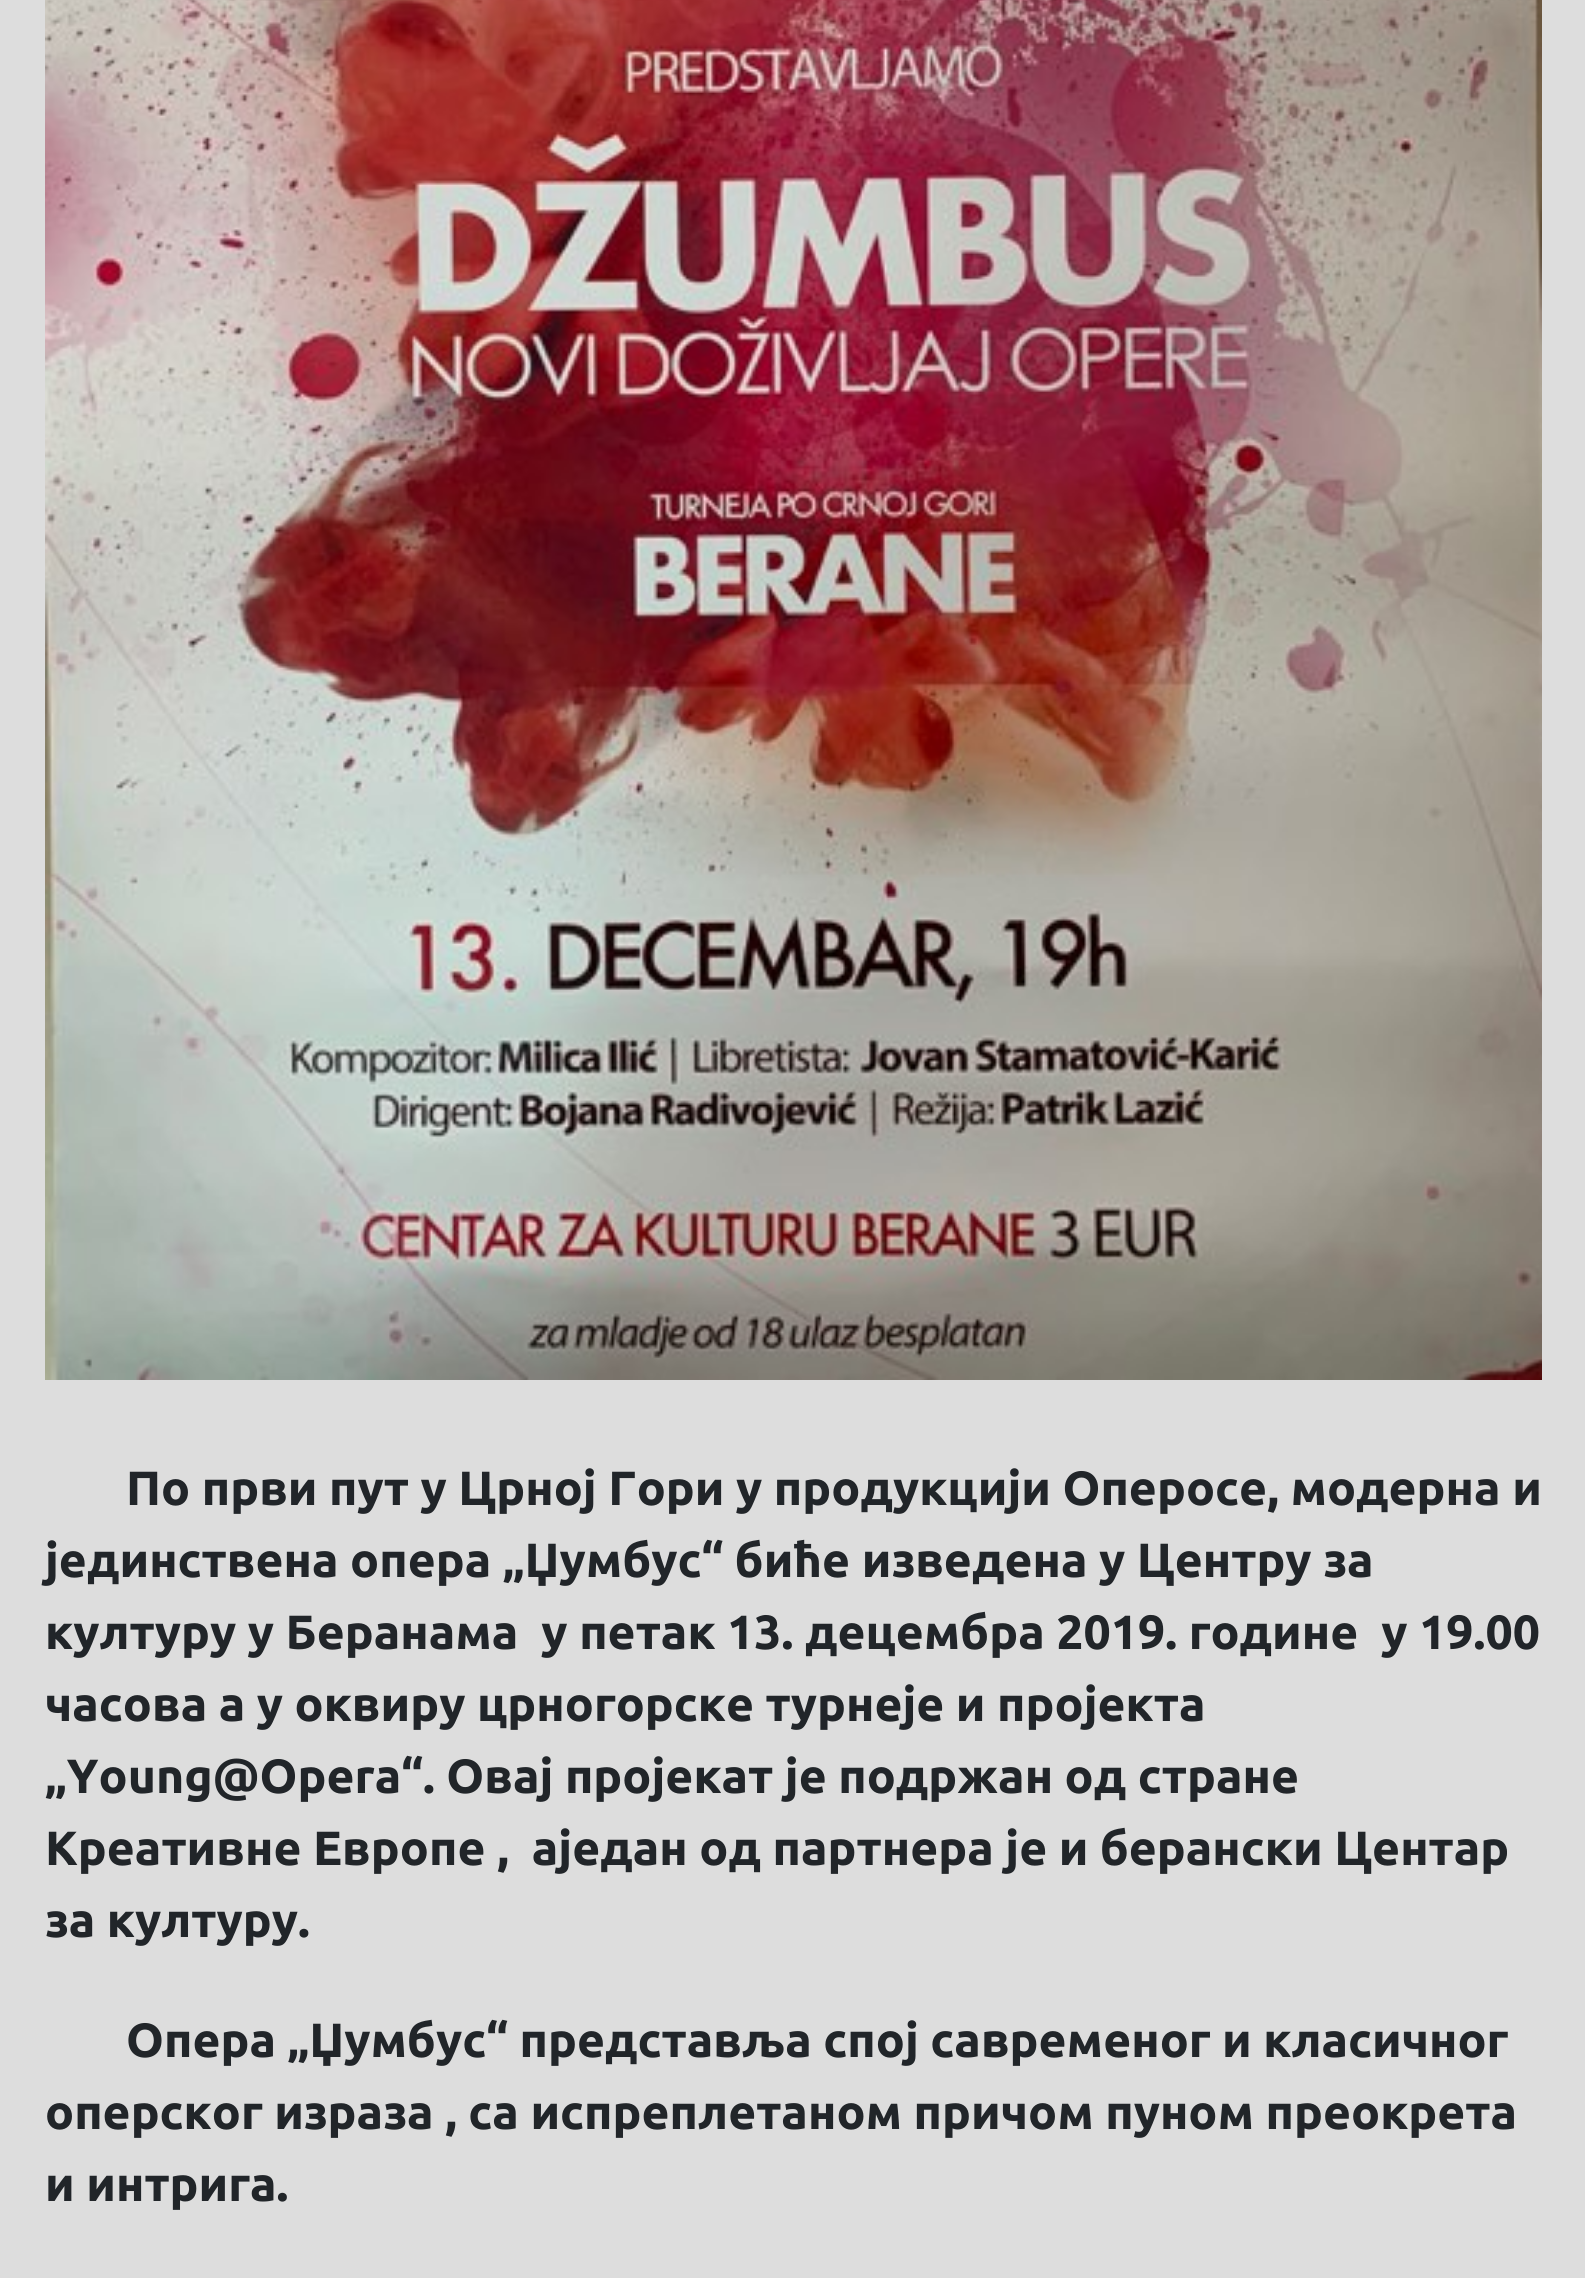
#include <cairo/cairo.h>
#include <math.h>
#include <stddef.h>

typedef struct { double x, y; const char *s; } line_t;
static cairo_t *cr;

static void rgb(unsigned color)
{
	cairo_set_source_rgb(cr, (color >> 16) / 255.0, (color >> 8 & 255) / 255.0, (color & 255) / 255.0);
}

static void image(const char *path, double x, double y, double w, double h)
{
	cairo_surface_t *image = cairo_image_surface_create_from_png(path);
	cairo_save(cr);
	cairo_set_source_surface(cr, image, x, y);
	cairo_rectangle(cr, x, y, w, h);
	cairo_fill(cr);
	cairo_restore(cr);
	cairo_surface_destroy(image);
}

int main(void) {
	cairo_surface_t *surface = cairo_image_surface_create(CAIRO_FORMAT_RGB24, 1585, 2278);
	cr = cairo_create(surface);
	cairo_font_options_t *options = cairo_font_options_create();
	cairo_font_options_set_hint_metrics(options, CAIRO_HINT_METRICS_OFF);
	cairo_font_options_set_hint_style(options, CAIRO_HINT_STYLE_NONE);
	cairo_set_font_options(cr, options);
	cairo_set_miter_limit(cr, 4);
	rgb(0xdddddd);
	cairo_paint(cr);
	image("img/1.png", 45, 0, 1497, 1380);
	cairo_select_font_face(cr, "Ubuntu", CAIRO_FONT_SLANT_NORMAL, CAIRO_FONT_WEIGHT_BOLD);
	cairo_set_font_size(cr, 48);
	rgb(0x212529);
	{
		static const line_t items[] = {
			{126, 1505, "По први пут у Црној Гори у продукцији Оперосе, модерна и"},
			{45, 1577, "јединствена опера „Џумбус“ биће изведена у Центру за"},
			{45, 1649, "културу у Беранама  у петак 13. децембра 2019. године  у 19.00"},
			{45, 1721, "часова а у оквиру црногорске турнеје и пројекта"},
			{45, 1793, "„Young@Opera“. Овај пројекат је подржан од стране"},
			{45, 1865, "Креативне Европе ,  аједан од партнера је и берански Центар"},
			{45, 1937, "за културу."},
			{126, 2057, "Опера „Џумбус“ представља спој савременог и класичног"},
			{45, 2129, "оперског израза , са испреплетаном причом пуном преокрета"},
			{45, 2201, "и интрига."},
		};
		for (size_t i = 0; i < sizeof items / sizeof *items; i++) {
			cairo_move_to(cr, items[i].x, items[i].y);
			cairo_show_text(cr, items[i].s);
		}
	}
	cairo_surface_write_to_png(surface, "page.png");
	cairo_font_options_destroy(options);
	cairo_destroy(cr);
	cairo_surface_destroy(surface);
	return 0;
}
